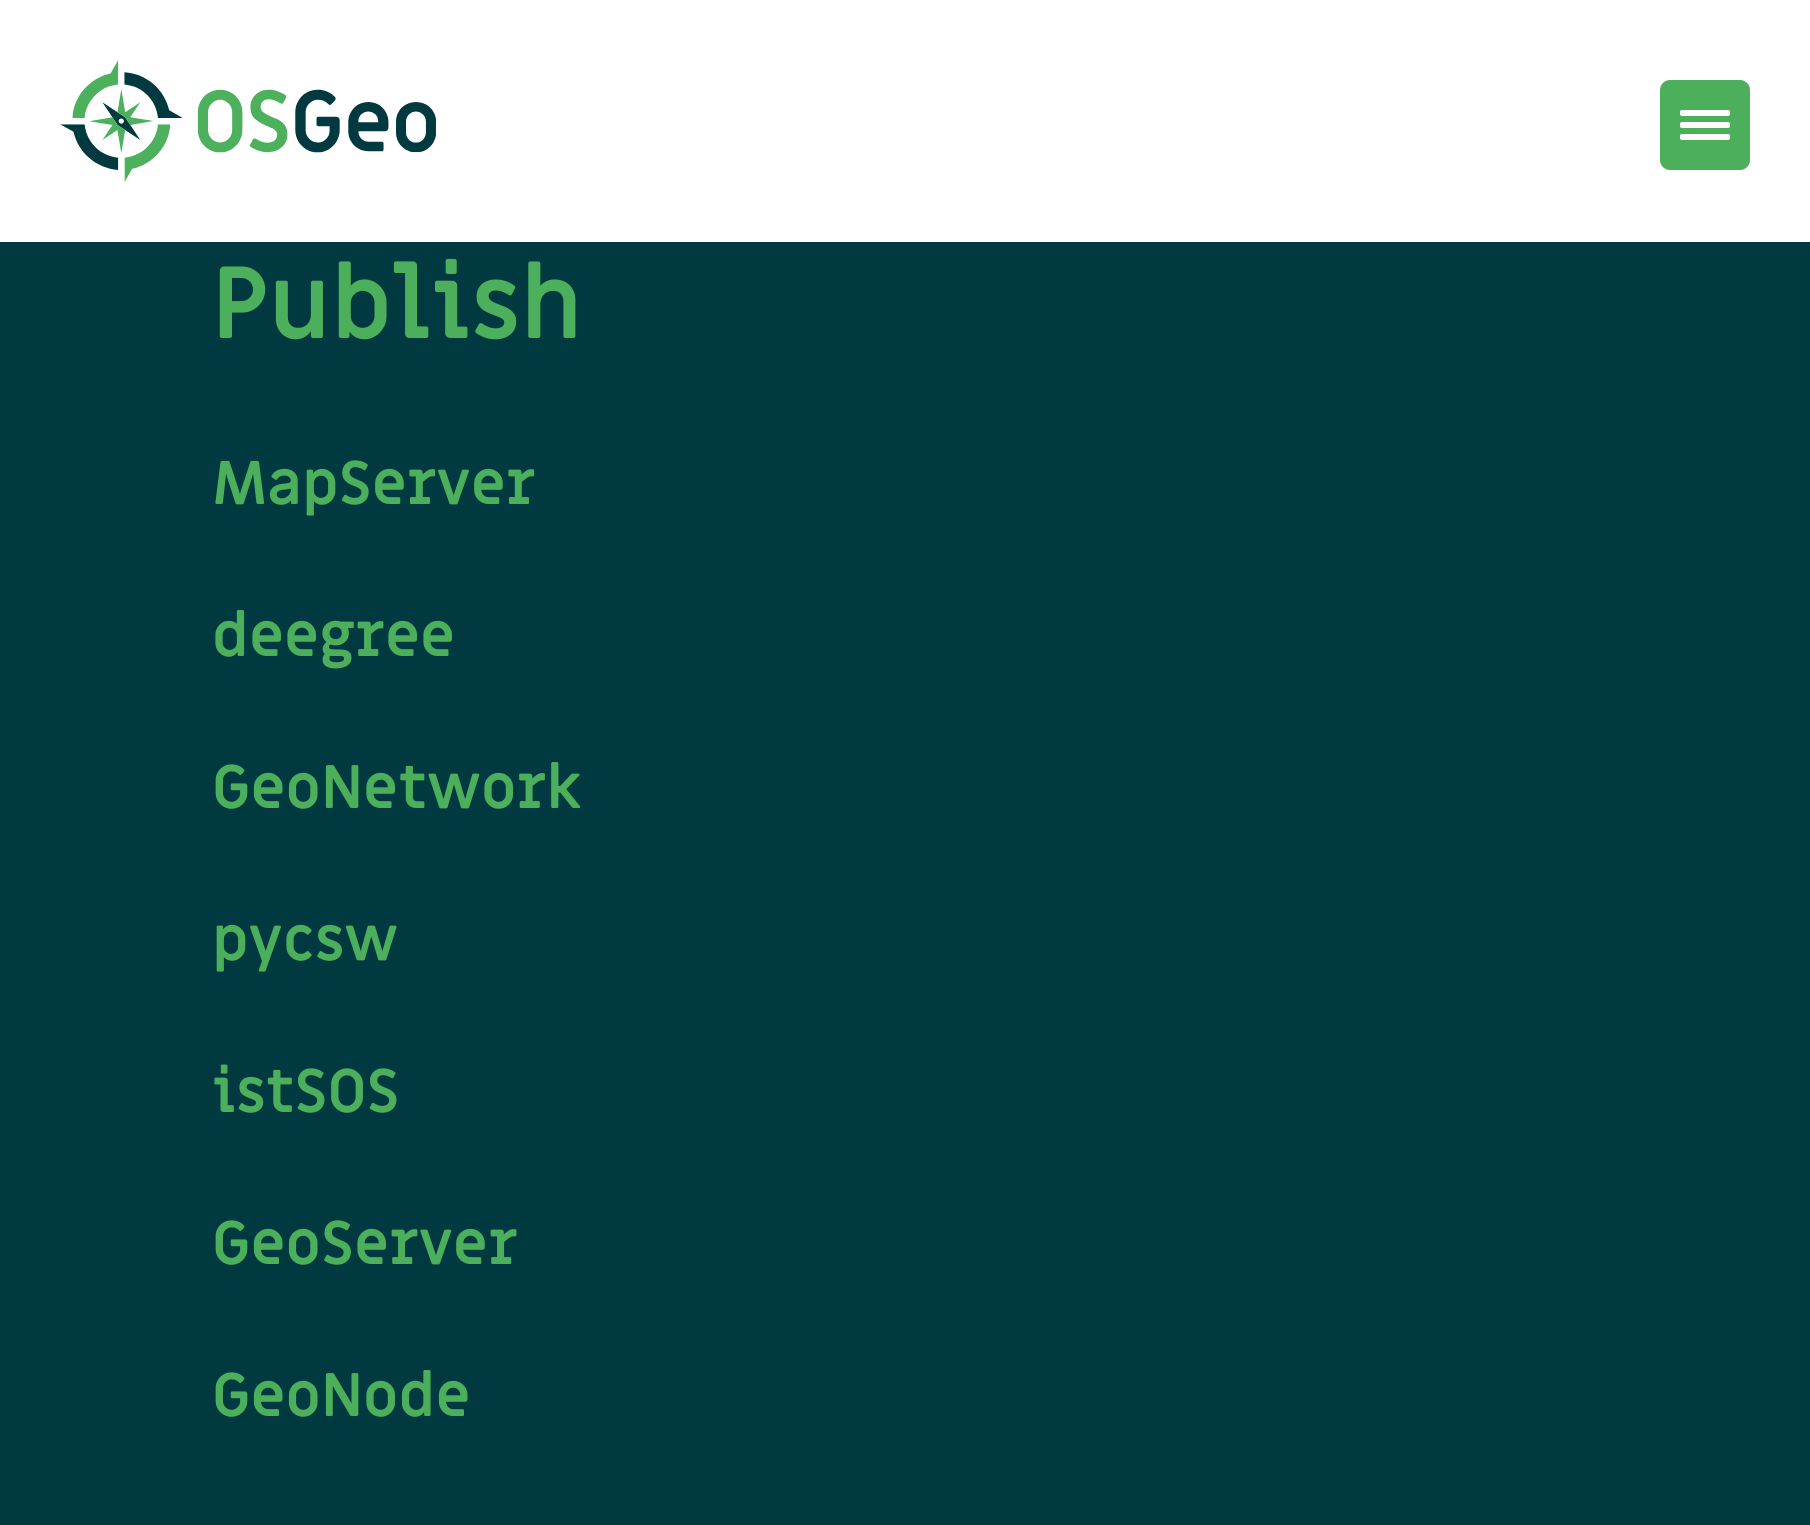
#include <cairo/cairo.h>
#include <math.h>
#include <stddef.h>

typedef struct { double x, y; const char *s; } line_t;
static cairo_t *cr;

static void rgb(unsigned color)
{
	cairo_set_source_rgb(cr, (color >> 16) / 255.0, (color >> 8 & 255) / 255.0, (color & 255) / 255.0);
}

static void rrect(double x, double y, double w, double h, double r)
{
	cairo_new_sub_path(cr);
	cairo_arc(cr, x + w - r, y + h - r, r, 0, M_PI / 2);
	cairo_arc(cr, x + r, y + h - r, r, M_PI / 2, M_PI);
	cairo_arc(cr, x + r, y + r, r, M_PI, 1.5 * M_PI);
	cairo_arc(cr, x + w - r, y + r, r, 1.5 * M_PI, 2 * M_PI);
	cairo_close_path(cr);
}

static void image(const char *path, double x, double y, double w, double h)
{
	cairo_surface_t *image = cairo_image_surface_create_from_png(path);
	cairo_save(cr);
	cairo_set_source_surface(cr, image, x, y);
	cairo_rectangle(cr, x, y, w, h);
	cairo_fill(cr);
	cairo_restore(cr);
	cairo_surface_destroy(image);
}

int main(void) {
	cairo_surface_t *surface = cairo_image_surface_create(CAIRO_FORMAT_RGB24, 1810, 1525);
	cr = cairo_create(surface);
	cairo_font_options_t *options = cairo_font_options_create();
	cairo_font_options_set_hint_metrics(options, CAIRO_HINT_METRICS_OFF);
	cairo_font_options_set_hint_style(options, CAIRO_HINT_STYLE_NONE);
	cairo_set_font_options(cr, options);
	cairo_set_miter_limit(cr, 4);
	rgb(0x003a40);
	cairo_paint(cr);
	rgb(0xffffff);
	cairo_rectangle(cr, 0, 0, 1810, 242);
	cairo_fill(cr);
	image("img/1.png", 60, 60, 376, 122);
	rgb(0x4caf5b);
	rrect(1660, 80, 90, 90, 10);
	cairo_fill(cr);
	rgb(0xffffff);
	rrect(1680, 110, 50, 6, 2);
	cairo_fill(cr);
	rrect(1680, 122, 50, 6, 2);
	cairo_fill(cr);
	rrect(1680, 134, 50, 6, 2);
	cairo_fill(cr);
	cairo_select_font_face(cr, "Miriam Libre", CAIRO_FONT_SLANT_NORMAL, CAIRO_FONT_WEIGHT_BOLD);
	cairo_set_font_size(cr, 100);
	rgb(0x4caf5b);
	cairo_move_to(cr, 212, 338);
	cairo_show_text(cr, "Publish");
	cairo_set_font_size(cr, 60);
	{
		static const line_t items[] = {
			{212, 504, "MapServer"},
			{212, 656, "deegree"},
			{212, 808, "GeoNetwork"},
			{212, 960, "pycsw"},
			{212, 1112, "istSOS"},
			{212, 1264, "GeoServer"},
			{212, 1416, "GeoNode"},
		};
		for (size_t i = 0; i < sizeof items / sizeof *items; i++) {
			cairo_move_to(cr, items[i].x, items[i].y);
			cairo_show_text(cr, items[i].s);
		}
	}
	cairo_surface_write_to_png(surface, "page.png");
	cairo_font_options_destroy(options);
	cairo_destroy(cr);
	cairo_surface_destroy(surface);
	return 0;
}
